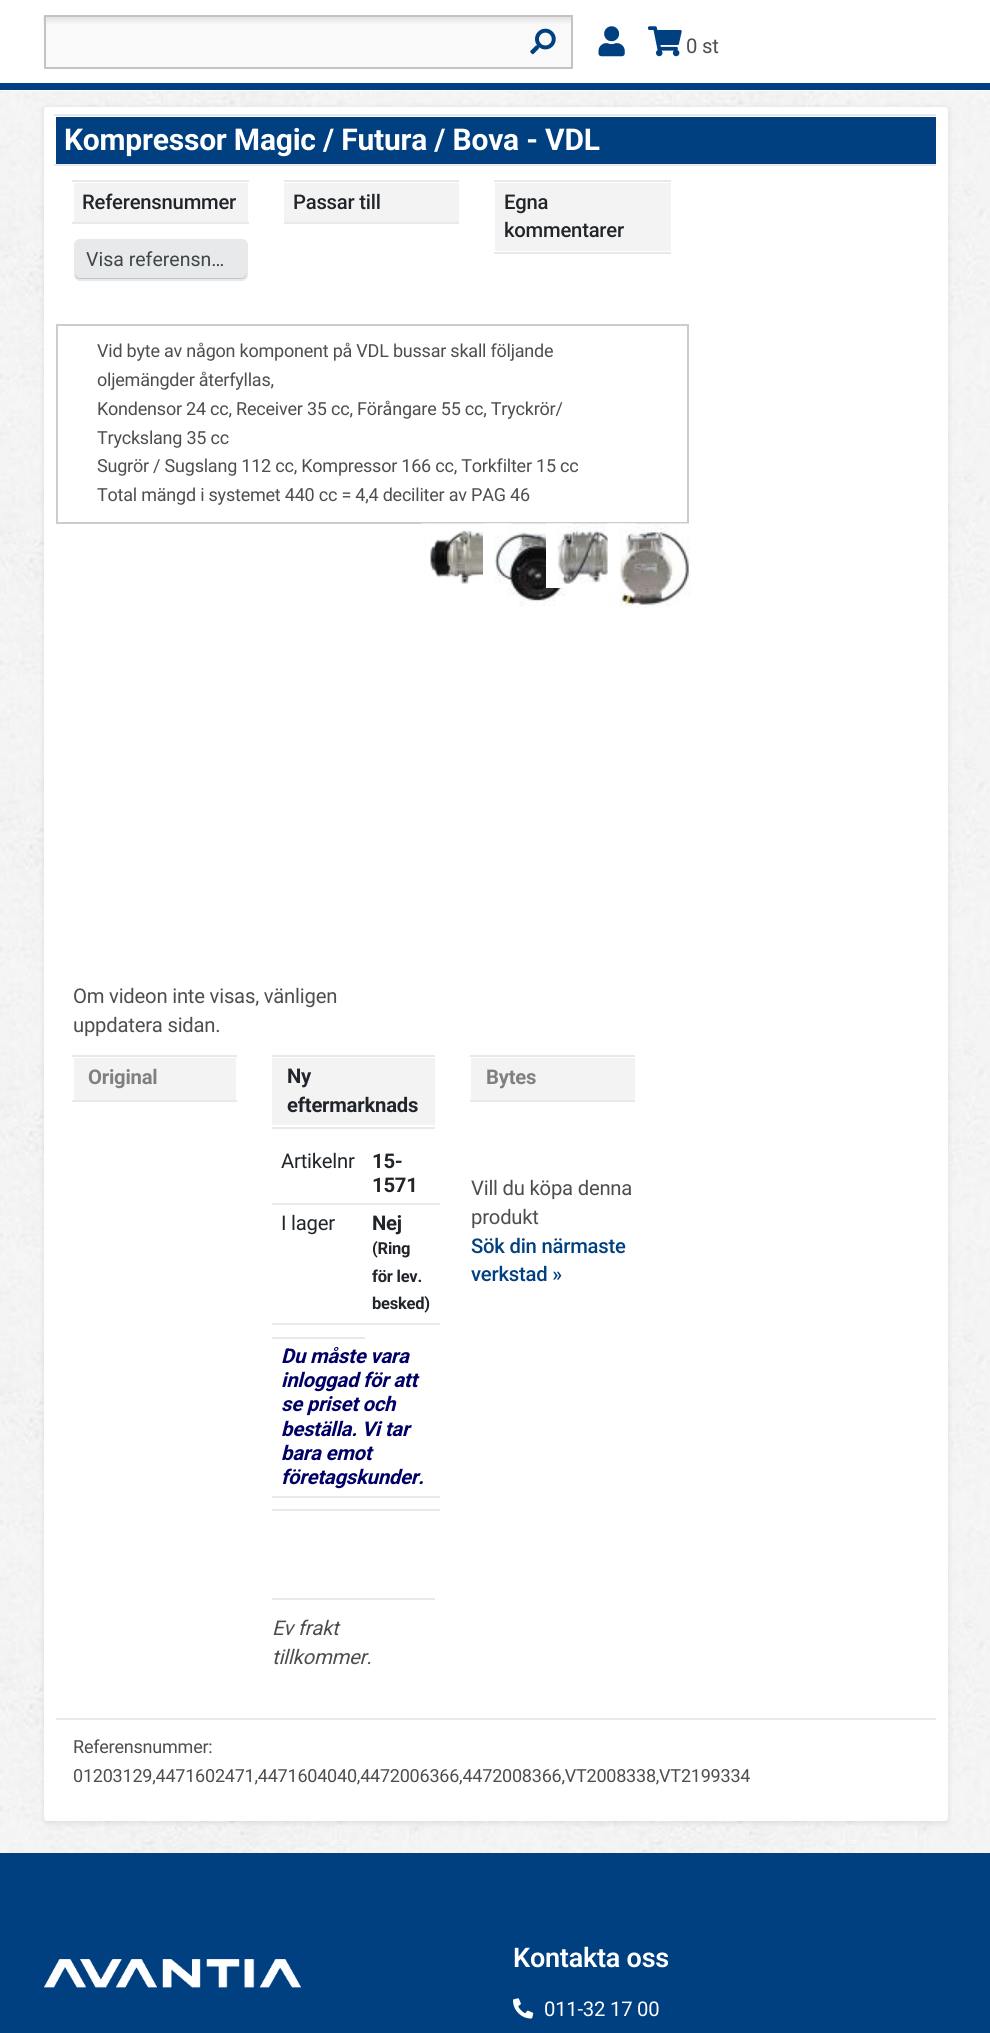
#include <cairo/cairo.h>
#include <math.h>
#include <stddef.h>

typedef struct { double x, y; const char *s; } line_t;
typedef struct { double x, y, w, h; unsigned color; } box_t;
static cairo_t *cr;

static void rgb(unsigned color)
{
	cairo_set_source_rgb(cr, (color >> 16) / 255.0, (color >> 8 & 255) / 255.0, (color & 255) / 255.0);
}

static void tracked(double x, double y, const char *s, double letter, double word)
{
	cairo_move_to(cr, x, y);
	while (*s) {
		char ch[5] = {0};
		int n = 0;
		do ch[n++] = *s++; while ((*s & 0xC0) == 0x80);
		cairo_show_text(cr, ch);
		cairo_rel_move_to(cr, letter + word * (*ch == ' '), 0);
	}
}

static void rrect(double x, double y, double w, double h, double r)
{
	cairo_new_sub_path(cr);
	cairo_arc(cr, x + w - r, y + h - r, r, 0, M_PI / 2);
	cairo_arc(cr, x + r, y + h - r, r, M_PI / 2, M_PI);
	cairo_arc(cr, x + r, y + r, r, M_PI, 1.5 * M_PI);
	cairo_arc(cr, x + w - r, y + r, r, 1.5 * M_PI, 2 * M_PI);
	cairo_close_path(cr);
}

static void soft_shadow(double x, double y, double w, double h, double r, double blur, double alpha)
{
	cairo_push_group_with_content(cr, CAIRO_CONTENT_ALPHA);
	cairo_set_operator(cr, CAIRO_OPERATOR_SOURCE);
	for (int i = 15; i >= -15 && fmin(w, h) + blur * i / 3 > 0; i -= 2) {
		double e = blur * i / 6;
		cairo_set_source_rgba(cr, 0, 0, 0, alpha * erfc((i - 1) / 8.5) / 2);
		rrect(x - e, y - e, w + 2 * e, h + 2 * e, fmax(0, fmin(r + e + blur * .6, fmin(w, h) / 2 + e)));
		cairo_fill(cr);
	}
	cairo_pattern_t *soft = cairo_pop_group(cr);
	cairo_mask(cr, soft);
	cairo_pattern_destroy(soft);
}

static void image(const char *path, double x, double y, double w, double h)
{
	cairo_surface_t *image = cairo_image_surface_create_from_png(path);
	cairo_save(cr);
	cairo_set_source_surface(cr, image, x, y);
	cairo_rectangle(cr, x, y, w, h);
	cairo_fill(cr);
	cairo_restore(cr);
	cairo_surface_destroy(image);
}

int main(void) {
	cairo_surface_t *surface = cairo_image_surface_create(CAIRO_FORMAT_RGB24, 990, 2033);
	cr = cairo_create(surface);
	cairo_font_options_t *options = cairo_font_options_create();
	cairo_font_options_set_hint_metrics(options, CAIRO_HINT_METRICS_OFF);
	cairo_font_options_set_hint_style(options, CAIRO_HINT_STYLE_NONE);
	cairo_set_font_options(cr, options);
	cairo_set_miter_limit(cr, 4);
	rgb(0xffffff);
	cairo_paint(cr);
	rgb(0xf9f9f9);
	cairo_rectangle(cr, 46, 24, 525, 43);
	cairo_fill(cr);
	image("img/1.png", 43, 16, 528, 8);
	cairo_rectangle(cr, 45, 16, 527, 52);
	rgb(0xc3c3c3);
	cairo_stroke(cr);
	image("img/2.png", 530, 28, 26, 27);
	image("img/3.png", 598, 26, 27, 31);
	image("img/4.png", 648, 26, 34, 31);
	rgb(0x004080);
	cairo_rectangle(cr, 0, 83, 990, 7);
	cairo_fill(cr);
	image("img/5.png", 0, 91, 990, 1762);
	rgb(0x000000);
	soft_shadow(44, 108, 904, 1715, 3, 3, 0.1);
	rgb(0xffffff);
	rrect(44, 107, 904, 1714, 3);
	cairo_fill(cr);
	{
		static const box_t items[] = {
			{54, 114, 882, 2, 0xe9e9e9},
			{54, 164, 882, 2, 0xe9e9e9},
			{56, 117, 880, 47, 0x004080},
			{74, 183, 174, 39, 0xf3f3f3},
			{72, 180, 177, 2, 0xe9e9e9},
			{72, 222, 177, 2, 0xe9e9e9},
		};
		for (size_t i = 0; i < sizeof items / sizeof *items; i++) {
			rgb(items[i].color);
			cairo_rectangle(cr, items[i].x, items[i].y, items[i].w, items[i].h);
			cairo_fill(cr);
		}
	}
	rgb(0xe7e9ea);
	rrect(74, 239, 174, 42, 6);
	cairo_fill(cr);
	rgb(0xc4c6c7);
	cairo_new_path(cr);
	cairo_move_to(cr, 75, 273);
	cairo_line_to(cr, 75, 274);
	cairo_curve_to(cr, 75, 277, 77, 279, 80, 279);
	cairo_line_to(cr, 241, 279);
	cairo_curve_to(cr, 244, 279, 246, 277, 246, 274);
	cairo_line_to(cr, 246, 273);
	cairo_curve_to(cr, 246, 275, 244, 278, 242, 278);
	cairo_line_to(cr, 80, 278);
	cairo_curve_to(cr, 77, 278, 75, 275, 75, 273);
	cairo_close_path(cr);
	cairo_fill(cr);
	{
		static const box_t items[] = {
			{284, 183, 175, 39, 0xf3f3f3},
			{284, 180, 175, 2, 0xe9e9e9},
			{284, 222, 175, 2, 0xe9e9e9},
			{495, 183, 176, 68, 0xf3f3f3},
			{494, 180, 177, 2, 0xe9e9e9},
			{494, 252, 177, 2, 0xe9e9e9},
		};
		for (size_t i = 0; i < sizeof items / sizeof *items; i++) {
			rgb(items[i].color);
			cairo_rectangle(cr, items[i].x, items[i].y, items[i].w, items[i].h);
			cairo_fill(cr);
		}
	}
	cairo_rectangle(cr, 57, 325, 631, 198);
	rgb(0xcccccc);
	cairo_stroke(cr);
	image("img/6.png", 421, 523, 91, 63);
	image("img/7.png", 483, 523, 90, 83);
	image("img/8.png", 546, 523, 90, 65);
	image("img/9.png", 607, 523, 84, 86);
	{
		static const box_t items[] = {
			{74, 1058, 162, 42, 0xf3f3f3},
			{72, 1055, 165, 2, 0xe9e9e9},
			{72, 1100, 165, 2, 0xe9e9e9},
			{272, 1058, 163, 67, 0xf3f3f3},
			{272, 1055, 163, 2, 0xe9e9e9},
			{272, 1127, 163, 2, 0xe9e9e9},
			{272, 1203, 168, 2, 0xe9e9e9},
			{272, 1323, 168, 2, 0xe9e9e9},
			{272, 1337, 93, 2, 0xe9e9e9},
			{272, 1496, 168, 2, 0xe9e9e9},
			{272, 1509, 168, 2, 0xe9e9e9},
			{272, 1598, 163, 2, 0xe9e9e9},
			{471, 1058, 164, 42, 0xf3f3f3},
			{470, 1055, 165, 2, 0xe9e9e9},
			{470, 1100, 165, 2, 0xe9e9e9},
			{56, 1718, 880, 2, 0xe9e9e9},
			{0, 1853, 990, 180, 0x004080},
		};
		for (size_t i = 0; i < sizeof items / sizeof *items; i++) {
			rgb(items[i].color);
			cairo_rectangle(cr, items[i].x, items[i].y, items[i].w, items[i].h);
			cairo_fill(cr);
		}
	}
	image("img/10.png", 44, 1959, 257, 29);
	image("img/11.png", 513, 1998, 21, 21);
	cairo_select_font_face(cr, "Roboto", CAIRO_FONT_SLANT_NORMAL, CAIRO_FONT_WEIGHT_NORMAL);
	cairo_set_font_size(cr, 20.25);
	rgb(0x4e4e4e);
	tracked(686, 53, "0 st", -0.22, 0);
	cairo_select_font_face(cr, "Roboto", CAIRO_FONT_SLANT_NORMAL, CAIRO_FONT_WEIGHT_BOLD);
	cairo_set_font_size(cr, 30);
	rgb(0xffffff);
	tracked(64, 150, "Kompressor Magic / Futura / Bova - VDL", -0.22, 0);
	cairo_select_font_face(cr, "Roboto Medium", CAIRO_FONT_SLANT_NORMAL, CAIRO_FONT_WEIGHT_NORMAL);
	cairo_set_font_size(cr, 20.25);
	rgb(0x212529);
	tracked(82, 209, "Referensnummer", -0.22, 0);
	cairo_select_font_face(cr, "Roboto", CAIRO_FONT_SLANT_NORMAL, CAIRO_FONT_WEIGHT_NORMAL);
	cairo_set_font_size(cr, 19.5);
	rgb(0x3f4647);
	cairo_move_to(cr, 86, 266);
	cairo_show_text(cr, "Visa referensn…");
	cairo_select_font_face(cr, "Roboto Medium", CAIRO_FONT_SLANT_NORMAL, CAIRO_FONT_WEIGHT_NORMAL);
	cairo_set_font_size(cr, 20.25);
	rgb(0x212529);
	{
		static const line_t items[] = {
			{293, 209, "Passar till"},
			{504, 209, "Egna"},
			{504, 237, "kommentarer"},
		};
		for (size_t i = 0; i < sizeof items / sizeof *items; i++) {
			tracked(items[i].x, items[i].y, items[i].s, -0.22, 0);
		}
	}
	cairo_select_font_face(cr, "Roboto", CAIRO_FONT_SLANT_NORMAL, CAIRO_FONT_WEIGHT_NORMAL);
	cairo_set_font_size(cr, 18);
	rgb(0x4e4e4e);
	{
		static const line_t items[] = {
			{97, 357, "Vid byte av någon komponent på VDL bussar skall följande"},
			{97, 386, "oljemängder återfyllas,"},
			{97, 415, "Kondensor 24 cc, Receiver 35 cc, Förångare 55 cc, Tryckrör/"},
			{97, 444, "Tryckslang 35 cc"},
			{97, 472, "Sugrör / Sugslang 112 cc, Kompressor 166 cc, Torkfilter 15 cc"},
			{97, 501, "Total mängd i systemet 440 cc = 4,4 deciliter av PAG 46"},
		};
		for (size_t i = 0; i < sizeof items / sizeof *items; i++) {
			tracked(items[i].x, items[i].y, items[i].s, -0.22, 0);
		}
	}
	cairo_set_font_size(cr, 20.25);
	tracked(73, 1003, "Om videon inte visas, vänligen", -0.22, 0);
	tracked(73, 1032, "uppdatera sidan.", -0.22, 0);
	cairo_select_font_face(cr, "Roboto", CAIRO_FONT_SLANT_NORMAL, CAIRO_FONT_WEIGHT_BOLD);
	rgb(0x808080);
	tracked(88, 1084, "Original", -0.22, 0);
	rgb(0x212529);
	tracked(287, 1083, "Ny", -0.22, 0);
	tracked(287, 1112, "eftermarknads", -0.22, 0);
	cairo_select_font_face(cr, "Roboto", CAIRO_FONT_SLANT_NORMAL, CAIRO_FONT_WEIGHT_NORMAL);
	tracked(281, 1168, "Artikelnr", -0.22, 0);
	cairo_select_font_face(cr, "Roboto", CAIRO_FONT_SLANT_NORMAL, CAIRO_FONT_WEIGHT_BOLD);
	tracked(372, 1168, "15-", -0.22, 0);
	tracked(372, 1192, "1571", -0.22, 0);
	cairo_select_font_face(cr, "Roboto", CAIRO_FONT_SLANT_NORMAL, CAIRO_FONT_WEIGHT_NORMAL);
	tracked(281, 1230, "I lager", -0.22, 0);
	cairo_select_font_face(cr, "Roboto", CAIRO_FONT_SLANT_NORMAL, CAIRO_FONT_WEIGHT_BOLD);
	tracked(372, 1230, "Nej", -0.22, 0);
	cairo_set_font_size(cr, 16.5);
	{
		static const line_t items[] = {
			{372, 1254, "(Ring"},
			{372, 1282, "för lev."},
			{372, 1309, "besked)"},
		};
		for (size_t i = 0; i < sizeof items / sizeof *items; i++) {
			tracked(items[i].x, items[i].y, items[i].s, -0.22, 0);
		}
	}
	cairo_select_font_face(cr, "Roboto", CAIRO_FONT_SLANT_ITALIC, CAIRO_FONT_WEIGHT_BOLD);
	cairo_set_font_size(cr, 20.25);
	rgb(0x000066);
	{
		static const line_t items[] = {
			{281, 1363, "Du måste vara"},
			{281, 1387, "inloggad för att"},
			{281, 1411, "se priset och"},
			{281, 1436, "beställa. Vi tar"},
			{281, 1460, "bara emot"},
			{281, 1484, "företagskunder."},
		};
		for (size_t i = 0; i < sizeof items / sizeof *items; i++) {
			tracked(items[i].x, items[i].y, items[i].s, -0.22, 0);
		}
	}
	cairo_select_font_face(cr, "Roboto", CAIRO_FONT_SLANT_ITALIC, CAIRO_FONT_WEIGHT_NORMAL);
	rgb(0x4e4e4e);
	tracked(272, 1635, "Ev frakt", -0.22, 0);
	tracked(272, 1664, "tillkommer.", -0.22, 0);
	cairo_select_font_face(cr, "Roboto", CAIRO_FONT_SLANT_NORMAL, CAIRO_FONT_WEIGHT_BOLD);
	rgb(0x808080);
	tracked(486, 1084, "Bytes", -0.22, 0);
	cairo_select_font_face(cr, "Roboto", CAIRO_FONT_SLANT_NORMAL, CAIRO_FONT_WEIGHT_NORMAL);
	rgb(0x4e4e4e);
	tracked(471, 1195, "Vill du köpa denna", -0.22, 0);
	tracked(471, 1224, "produkt", -0.22, 0);
	cairo_select_font_face(cr, "Roboto Medium", CAIRO_FONT_SLANT_NORMAL, CAIRO_FONT_WEIGHT_NORMAL);
	rgb(0x004080);
	tracked(471, 1253, "Sök din närmaste", -0.22, 0);
	tracked(471, 1281, "verkstad »", -0.22, 0);
	cairo_select_font_face(cr, "Roboto", CAIRO_FONT_SLANT_NORMAL, CAIRO_FONT_WEIGHT_NORMAL);
	cairo_set_font_size(cr, 18);
	rgb(0x4e4e4e);
	tracked(73, 1753, "Referensnummer:", -0.22, 0);
	tracked(73, 1782, "01203129,4471602471,4471604040,4472006366,4472008366,VT2008338,VT2199334", -0.22, 0);
	cairo_select_font_face(cr, "Roboto SemiBold", CAIRO_FONT_SLANT_NORMAL, CAIRO_FONT_WEIGHT_NORMAL);
	cairo_set_font_size(cr, 27);
	rgb(0xffffff);
	tracked(513, 1967, "Kontakta oss", -0.22, 0);
	cairo_select_font_face(cr, "Roboto", CAIRO_FONT_SLANT_NORMAL, CAIRO_FONT_WEIGHT_NORMAL);
	cairo_set_font_size(cr, 20.25);
	tracked(544, 2016, "011-32 17 00", -0.22, 0);
	cairo_surface_write_to_png(surface, "page.png");
	cairo_font_options_destroy(options);
	cairo_destroy(cr);
	cairo_surface_destroy(surface);
	return 0;
}
